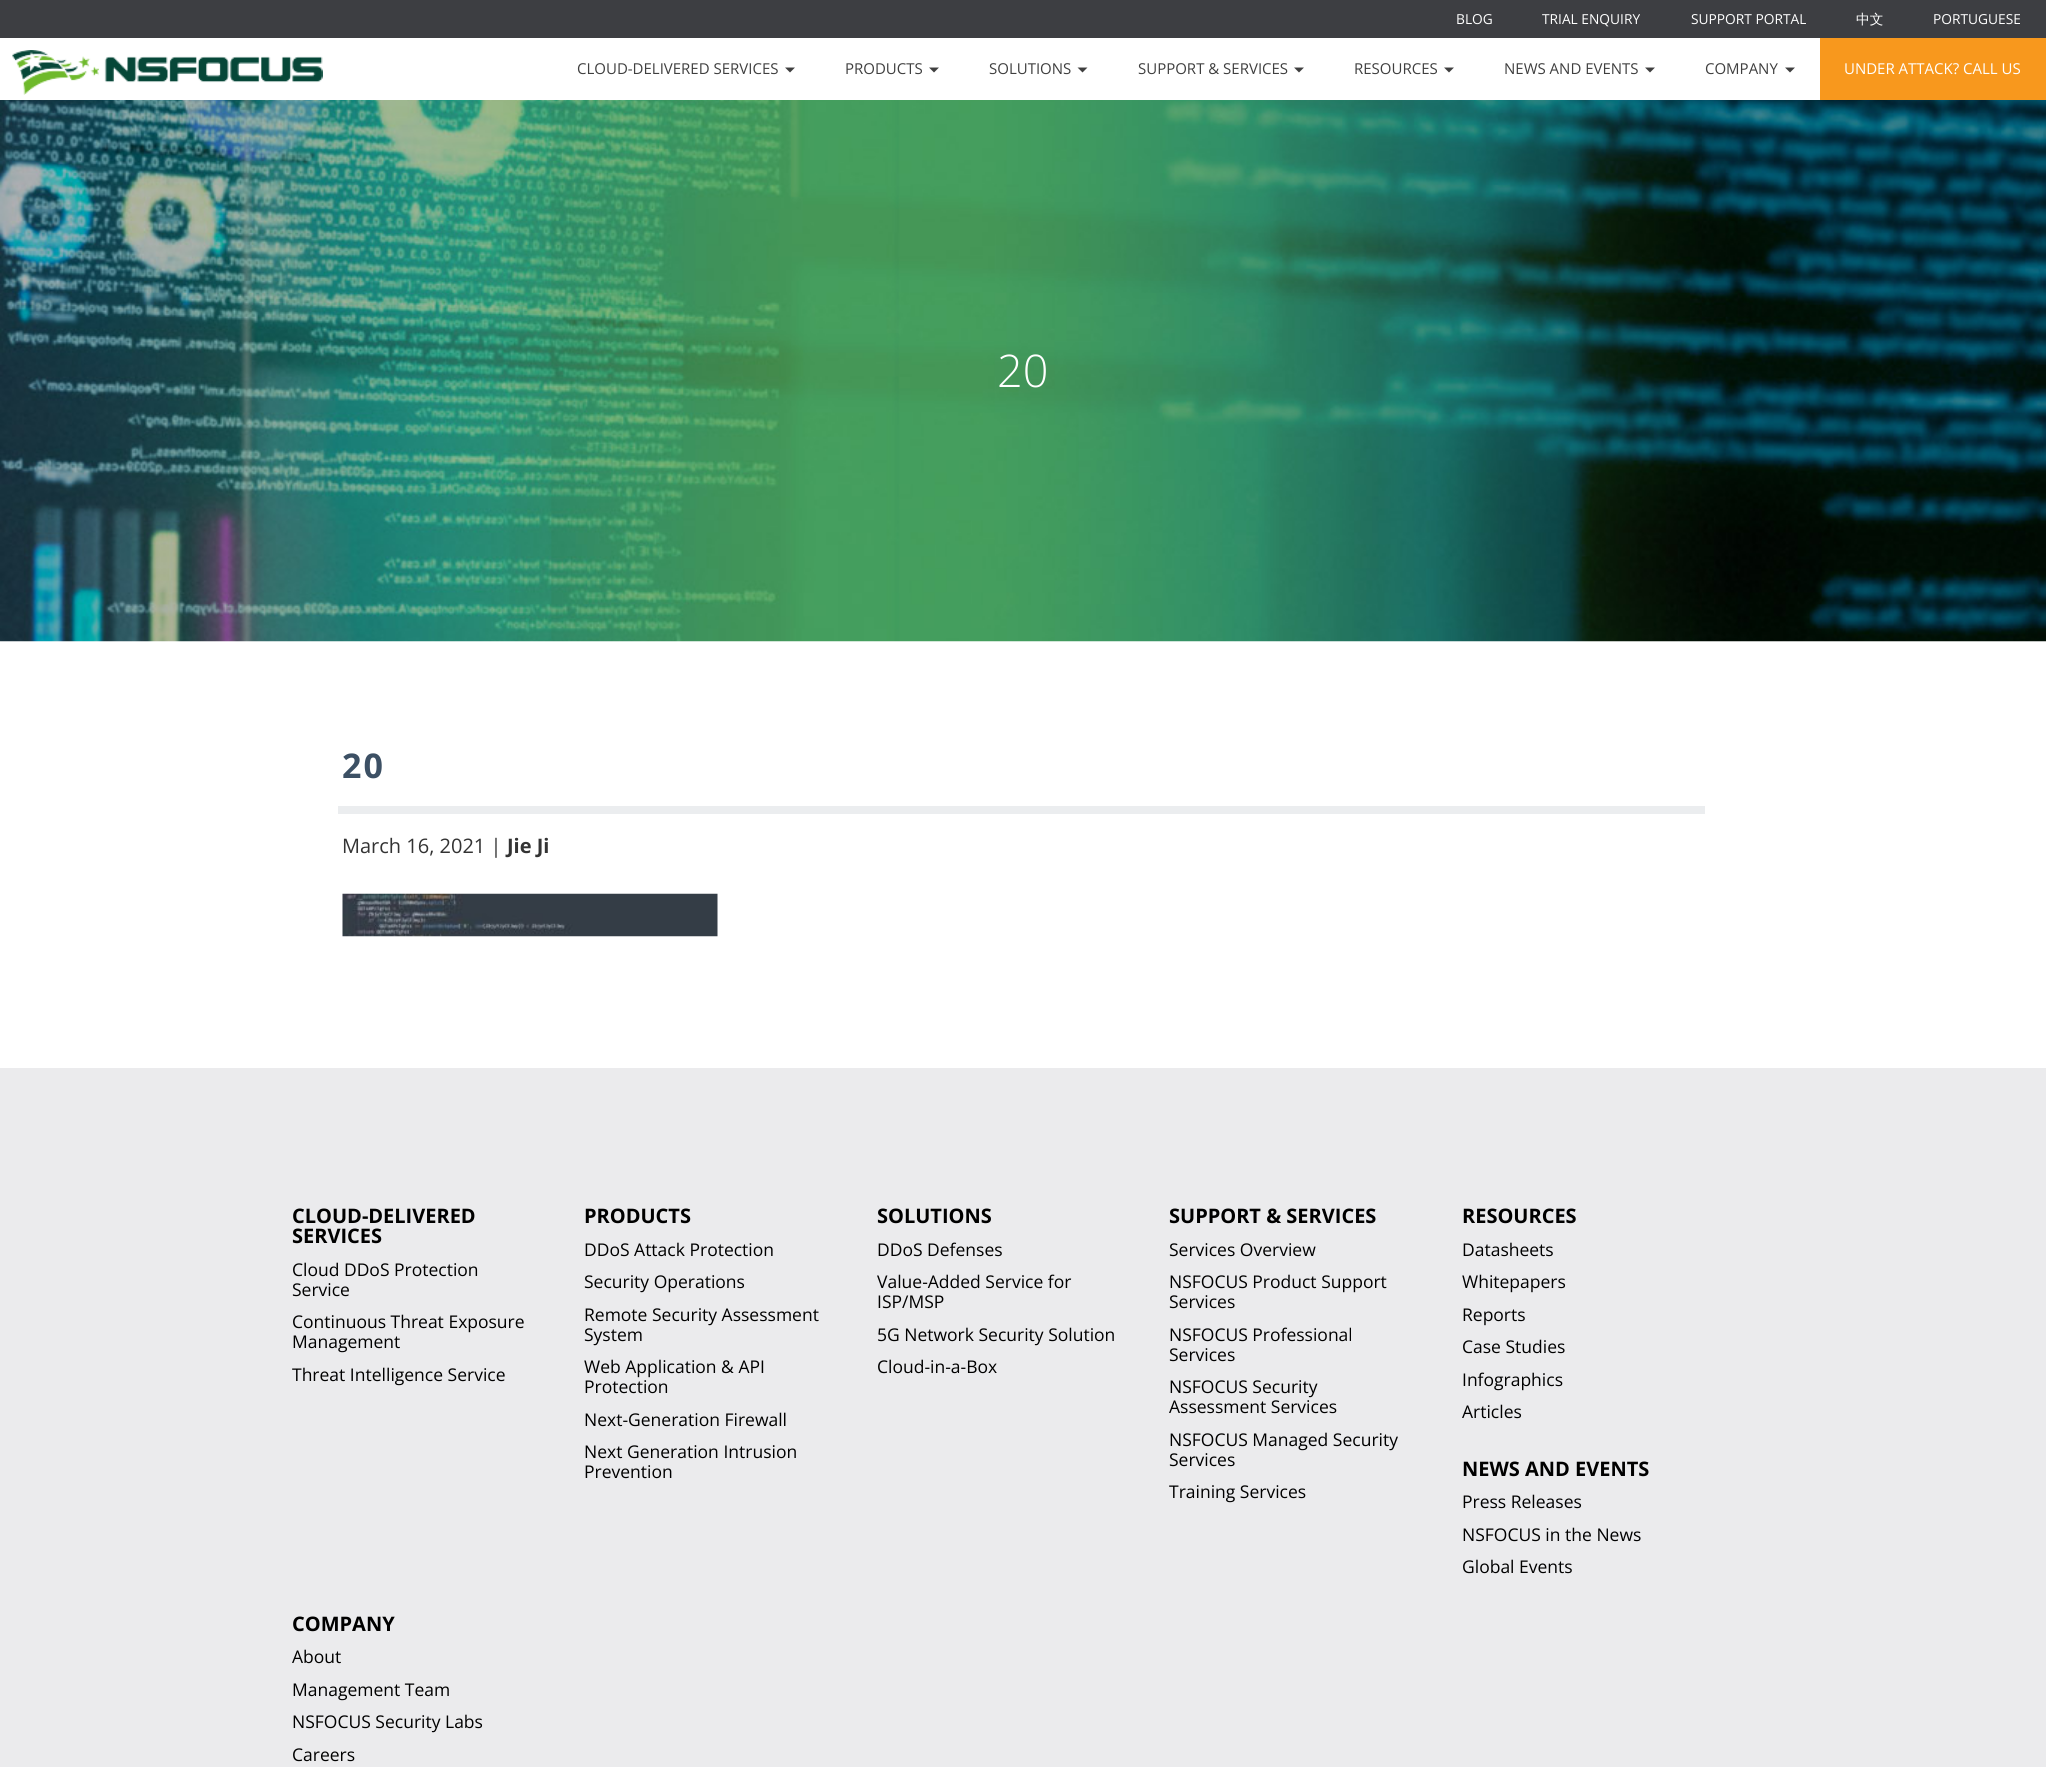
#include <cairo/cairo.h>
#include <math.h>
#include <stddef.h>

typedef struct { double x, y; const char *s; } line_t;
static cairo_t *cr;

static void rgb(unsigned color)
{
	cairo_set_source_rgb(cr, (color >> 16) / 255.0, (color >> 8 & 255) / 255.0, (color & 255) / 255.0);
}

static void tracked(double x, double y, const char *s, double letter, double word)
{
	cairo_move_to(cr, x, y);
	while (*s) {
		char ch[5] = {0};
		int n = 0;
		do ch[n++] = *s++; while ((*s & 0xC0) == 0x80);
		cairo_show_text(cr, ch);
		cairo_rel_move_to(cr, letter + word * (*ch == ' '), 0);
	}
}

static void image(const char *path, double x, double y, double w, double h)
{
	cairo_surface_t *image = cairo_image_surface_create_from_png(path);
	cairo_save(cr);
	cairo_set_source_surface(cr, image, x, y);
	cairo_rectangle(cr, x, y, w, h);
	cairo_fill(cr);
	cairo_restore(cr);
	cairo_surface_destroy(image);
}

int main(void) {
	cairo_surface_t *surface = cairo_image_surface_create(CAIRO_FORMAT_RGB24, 2046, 1767);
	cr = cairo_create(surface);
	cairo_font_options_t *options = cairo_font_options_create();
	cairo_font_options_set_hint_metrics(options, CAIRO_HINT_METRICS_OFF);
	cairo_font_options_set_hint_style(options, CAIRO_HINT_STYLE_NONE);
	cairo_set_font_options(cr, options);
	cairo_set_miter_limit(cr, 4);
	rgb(0xffffff);
	cairo_paint(cr);
	rgb(0x3d3e42);
	cairo_rectangle(cr, 0, 0, 2046, 38);
	cairo_fill(cr);
	image("img/1.png", 12, 50, 311, 45);
	rgb(0x3f3f3f);
	cairo_new_path(cr);
	cairo_move_to(cr, 785, 67.5);
	cairo_line_to(cr, 795, 67.5);
	cairo_line_to(cr, 790, 72.5);
	cairo_close_path(cr);
	cairo_fill(cr);
	cairo_new_path(cr);
	cairo_move_to(cr, 929, 67.5);
	cairo_line_to(cr, 939, 67.5);
	cairo_line_to(cr, 934, 72.5);
	cairo_close_path(cr);
	cairo_fill(cr);
	cairo_new_path(cr);
	cairo_move_to(cr, 1077.5, 67.5);
	cairo_line_to(cr, 1087.5, 67.5);
	cairo_line_to(cr, 1082.5, 72.5);
	cairo_close_path(cr);
	cairo_fill(cr);
	cairo_new_path(cr);
	cairo_move_to(cr, 1294, 67.5);
	cairo_line_to(cr, 1304, 67.5);
	cairo_line_to(cr, 1299, 72.5);
	cairo_close_path(cr);
	cairo_fill(cr);
	cairo_new_path(cr);
	cairo_move_to(cr, 1444, 67.5);
	cairo_line_to(cr, 1454, 67.5);
	cairo_line_to(cr, 1449, 72.5);
	cairo_close_path(cr);
	cairo_fill(cr);
	cairo_new_path(cr);
	cairo_move_to(cr, 1645, 67.5);
	cairo_line_to(cr, 1655, 67.5);
	cairo_line_to(cr, 1650, 72.5);
	cairo_close_path(cr);
	cairo_fill(cr);
	cairo_new_path(cr);
	cairo_move_to(cr, 1785, 67.5);
	cairo_line_to(cr, 1795, 67.5);
	cairo_line_to(cr, 1790, 72.5);
	cairo_close_path(cr);
	cairo_fill(cr);
	rgb(0xf8981d);
	cairo_rectangle(cr, 1820, 38, 226, 62);
	cairo_fill(cr);
	image("img/2.png", 0, 100, 2046, 542);
	rgb(0xebedef);
	cairo_rectangle(cr, 338, 806, 1367, 8);
	cairo_fill(cr);
	image("img/3.png", 342, 893, 376, 44);
	rgb(0xebebed);
	cairo_rectangle(cr, 0, 1068, 2046, 699);
	cairo_fill(cr);
	cairo_select_font_face(cr, "Open Sans", CAIRO_FONT_SLANT_NORMAL, CAIRO_FONT_WEIGHT_NORMAL);
	cairo_set_font_size(cr, 13.75);
	rgb(0xffffff);
	{
		static const line_t items[] = {
			{1456, 24, "BLOG"},
			{1542, 24, "TRIAL ENQUIRY"},
			{1691, 24, "SUPPORT PORTAL"},
		};
		for (size_t i = 0; i < sizeof items / sizeof *items; i++) {
			cairo_move_to(cr, items[i].x, items[i].y);
			cairo_show_text(cr, items[i].s);
		}
	}
	cairo_select_font_face(cr, "WenQuanYi Zen Hei Medium", CAIRO_FONT_SLANT_NORMAL, CAIRO_FONT_WEIGHT_NORMAL);
	cairo_move_to(cr, 1856, 24);
	cairo_show_text(cr, "中文");
	cairo_select_font_face(cr, "Open Sans", CAIRO_FONT_SLANT_NORMAL, CAIRO_FONT_WEIGHT_NORMAL);
	cairo_move_to(cr, 1933, 24);
	cairo_show_text(cr, "PORTUGUESE");
	cairo_set_font_size(cr, 15);
	rgb(0x3f3f3f);
	{
		static const line_t items[] = {
			{577, 74, "CLOUD-DELIVERED SERVICES"},
			{845, 74, "PRODUCTS"},
			{989, 74, "SOLUTIONS"},
			{1138, 74, "SUPPORT & SERVICES"},
			{1354, 74, "RESOURCES"},
			{1504, 74, "NEWS AND EVENTS"},
			{1705, 74, "COMPANY"},
		};
		for (size_t i = 0; i < sizeof items / sizeof *items; i++) {
			cairo_move_to(cr, items[i].x, items[i].y);
			cairo_show_text(cr, items[i].s);
		}
	}
	rgb(0xffffff);
	cairo_move_to(cr, 1844, 74);
	cairo_show_text(cr, "UNDER ATTACK? CALL US");
	cairo_select_font_face(cr, "Open Sans Light", CAIRO_FONT_SLANT_NORMAL, CAIRO_FONT_WEIGHT_NORMAL);
	cairo_set_font_size(cr, 45);
	cairo_move_to(cr, 997, 387);
	cairo_show_text(cr, "20");
	cairo_select_font_face(cr, "Open Sans", CAIRO_FONT_SLANT_NORMAL, CAIRO_FONT_WEIGHT_BOLD);
	cairo_set_font_size(cr, 34);
	rgb(0x3c5064);
	tracked(342, 778, "20", 2, 0);
	cairo_select_font_face(cr, "Open Sans", CAIRO_FONT_SLANT_NORMAL, CAIRO_FONT_WEIGHT_NORMAL);
	cairo_set_font_size(cr, 20);
	rgb(0x333333);
	cairo_move_to(cr, 342, 853);
	cairo_show_text(cr, "March 16, 2021 |");
	cairo_select_font_face(cr, "Open Sans", CAIRO_FONT_SLANT_NORMAL, CAIRO_FONT_WEIGHT_BOLD);
	cairo_move_to(cr, 507, 853);
	cairo_show_text(cr, "Jie Ji");
	rgb(0x000000);
	cairo_move_to(cr, 292, 1223);
	cairo_show_text(cr, "CLOUD-DELIVERED");
	cairo_move_to(cr, 292, 1243);
	cairo_show_text(cr, "SERVICES");
	cairo_select_font_face(cr, "Open Sans", CAIRO_FONT_SLANT_NORMAL, CAIRO_FONT_WEIGHT_NORMAL);
	cairo_set_font_size(cr, 17.5);
	{
		static const line_t items[] = {
			{292, 1276, "Cloud DDoS Protection"},
			{292, 1296, "Service"},
			{292, 1328, "Continuous Threat Exposure"},
			{292, 1348, "Management"},
			{292, 1381, "Threat Intelligence Service"},
		};
		for (size_t i = 0; i < sizeof items / sizeof *items; i++) {
			cairo_move_to(cr, items[i].x, items[i].y);
			cairo_show_text(cr, items[i].s);
		}
	}
	cairo_select_font_face(cr, "Open Sans", CAIRO_FONT_SLANT_NORMAL, CAIRO_FONT_WEIGHT_BOLD);
	cairo_set_font_size(cr, 20);
	cairo_move_to(cr, 584, 1223);
	cairo_show_text(cr, "PRODUCTS");
	cairo_select_font_face(cr, "Open Sans", CAIRO_FONT_SLANT_NORMAL, CAIRO_FONT_WEIGHT_NORMAL);
	cairo_set_font_size(cr, 17.5);
	{
		static const line_t items[] = {
			{584, 1256, "DDoS Attack Protection"},
			{584, 1288, "Security Operations"},
			{584, 1321, "Remote Security Assessment"},
			{584, 1341, "System"},
			{584, 1373, "Web Application & API"},
			{584, 1393, "Protection"},
			{584, 1426, "Next-Generation Firewall"},
			{584, 1458, "Next Generation Intrusion"},
			{584, 1478, "Prevention"},
		};
		for (size_t i = 0; i < sizeof items / sizeof *items; i++) {
			cairo_move_to(cr, items[i].x, items[i].y);
			cairo_show_text(cr, items[i].s);
		}
	}
	cairo_select_font_face(cr, "Open Sans", CAIRO_FONT_SLANT_NORMAL, CAIRO_FONT_WEIGHT_BOLD);
	cairo_set_font_size(cr, 20);
	cairo_move_to(cr, 877, 1223);
	cairo_show_text(cr, "SOLUTIONS");
	cairo_select_font_face(cr, "Open Sans", CAIRO_FONT_SLANT_NORMAL, CAIRO_FONT_WEIGHT_NORMAL);
	cairo_set_font_size(cr, 17.5);
	{
		static const line_t items[] = {
			{877, 1256, "DDoS Defenses"},
			{877, 1288, "Value-Added Service for"},
			{877, 1308, "ISP/MSP"},
			{877, 1341, "5G Network Security Solution"},
			{877, 1373, "Cloud-in-a-Box"},
		};
		for (size_t i = 0; i < sizeof items / sizeof *items; i++) {
			cairo_move_to(cr, items[i].x, items[i].y);
			cairo_show_text(cr, items[i].s);
		}
	}
	cairo_select_font_face(cr, "Open Sans", CAIRO_FONT_SLANT_NORMAL, CAIRO_FONT_WEIGHT_BOLD);
	cairo_set_font_size(cr, 20);
	cairo_move_to(cr, 1169, 1223);
	cairo_show_text(cr, "SUPPORT & SERVICES");
	cairo_select_font_face(cr, "Open Sans", CAIRO_FONT_SLANT_NORMAL, CAIRO_FONT_WEIGHT_NORMAL);
	cairo_set_font_size(cr, 17.5);
	{
		static const line_t items[] = {
			{1169, 1256, "Services Overview"},
			{1169, 1288, "NSFOCUS Product Support"},
			{1169, 1308, "Services"},
			{1169, 1341, "NSFOCUS Professional"},
			{1169, 1361, "Services"},
			{1169, 1393, "NSFOCUS Security"},
			{1169, 1413, "Assessment Services"},
			{1169, 1446, "NSFOCUS Managed Security"},
			{1169, 1466, "Services"},
			{1169, 1498, "Training Services"},
		};
		for (size_t i = 0; i < sizeof items / sizeof *items; i++) {
			cairo_move_to(cr, items[i].x, items[i].y);
			cairo_show_text(cr, items[i].s);
		}
	}
	cairo_select_font_face(cr, "Open Sans", CAIRO_FONT_SLANT_NORMAL, CAIRO_FONT_WEIGHT_BOLD);
	cairo_set_font_size(cr, 20);
	cairo_move_to(cr, 1462, 1223);
	cairo_show_text(cr, "RESOURCES");
	cairo_select_font_face(cr, "Open Sans", CAIRO_FONT_SLANT_NORMAL, CAIRO_FONT_WEIGHT_NORMAL);
	cairo_set_font_size(cr, 17.5);
	{
		static const line_t items[] = {
			{1462, 1256, "Datasheets"},
			{1462, 1288, "Whitepapers"},
			{1462, 1321, "Reports"},
			{1462, 1353, "Case Studies"},
			{1462, 1386, "Infographics"},
			{1462, 1418, "Articles"},
		};
		for (size_t i = 0; i < sizeof items / sizeof *items; i++) {
			cairo_move_to(cr, items[i].x, items[i].y);
			cairo_show_text(cr, items[i].s);
		}
	}
	cairo_select_font_face(cr, "Open Sans", CAIRO_FONT_SLANT_NORMAL, CAIRO_FONT_WEIGHT_BOLD);
	cairo_set_font_size(cr, 20);
	cairo_move_to(cr, 1462, 1476);
	cairo_show_text(cr, "NEWS AND EVENTS");
	cairo_select_font_face(cr, "Open Sans", CAIRO_FONT_SLANT_NORMAL, CAIRO_FONT_WEIGHT_NORMAL);
	cairo_set_font_size(cr, 17.5);
	{
		static const line_t items[] = {
			{1462, 1508, "Press Releases"},
			{1462, 1541, "NSFOCUS in the News"},
			{1462, 1573, "Global Events"},
		};
		for (size_t i = 0; i < sizeof items / sizeof *items; i++) {
			cairo_move_to(cr, items[i].x, items[i].y);
			cairo_show_text(cr, items[i].s);
		}
	}
	cairo_select_font_face(cr, "Open Sans", CAIRO_FONT_SLANT_NORMAL, CAIRO_FONT_WEIGHT_BOLD);
	cairo_set_font_size(cr, 20);
	cairo_move_to(cr, 292, 1631);
	cairo_show_text(cr, "COMPANY");
	cairo_select_font_face(cr, "Open Sans", CAIRO_FONT_SLANT_NORMAL, CAIRO_FONT_WEIGHT_NORMAL);
	cairo_set_font_size(cr, 17.5);
	{
		static const line_t items[] = {
			{292, 1663, "About"},
			{292, 1696, "Management Team"},
			{292, 1728, "NSFOCUS Security Labs"},
			{292, 1761, "Careers"},
		};
		for (size_t i = 0; i < sizeof items / sizeof *items; i++) {
			cairo_move_to(cr, items[i].x, items[i].y);
			cairo_show_text(cr, items[i].s);
		}
	}
	cairo_surface_write_to_png(surface, "page.png");
	cairo_font_options_destroy(options);
	cairo_destroy(cr);
	cairo_surface_destroy(surface);
	return 0;
}
